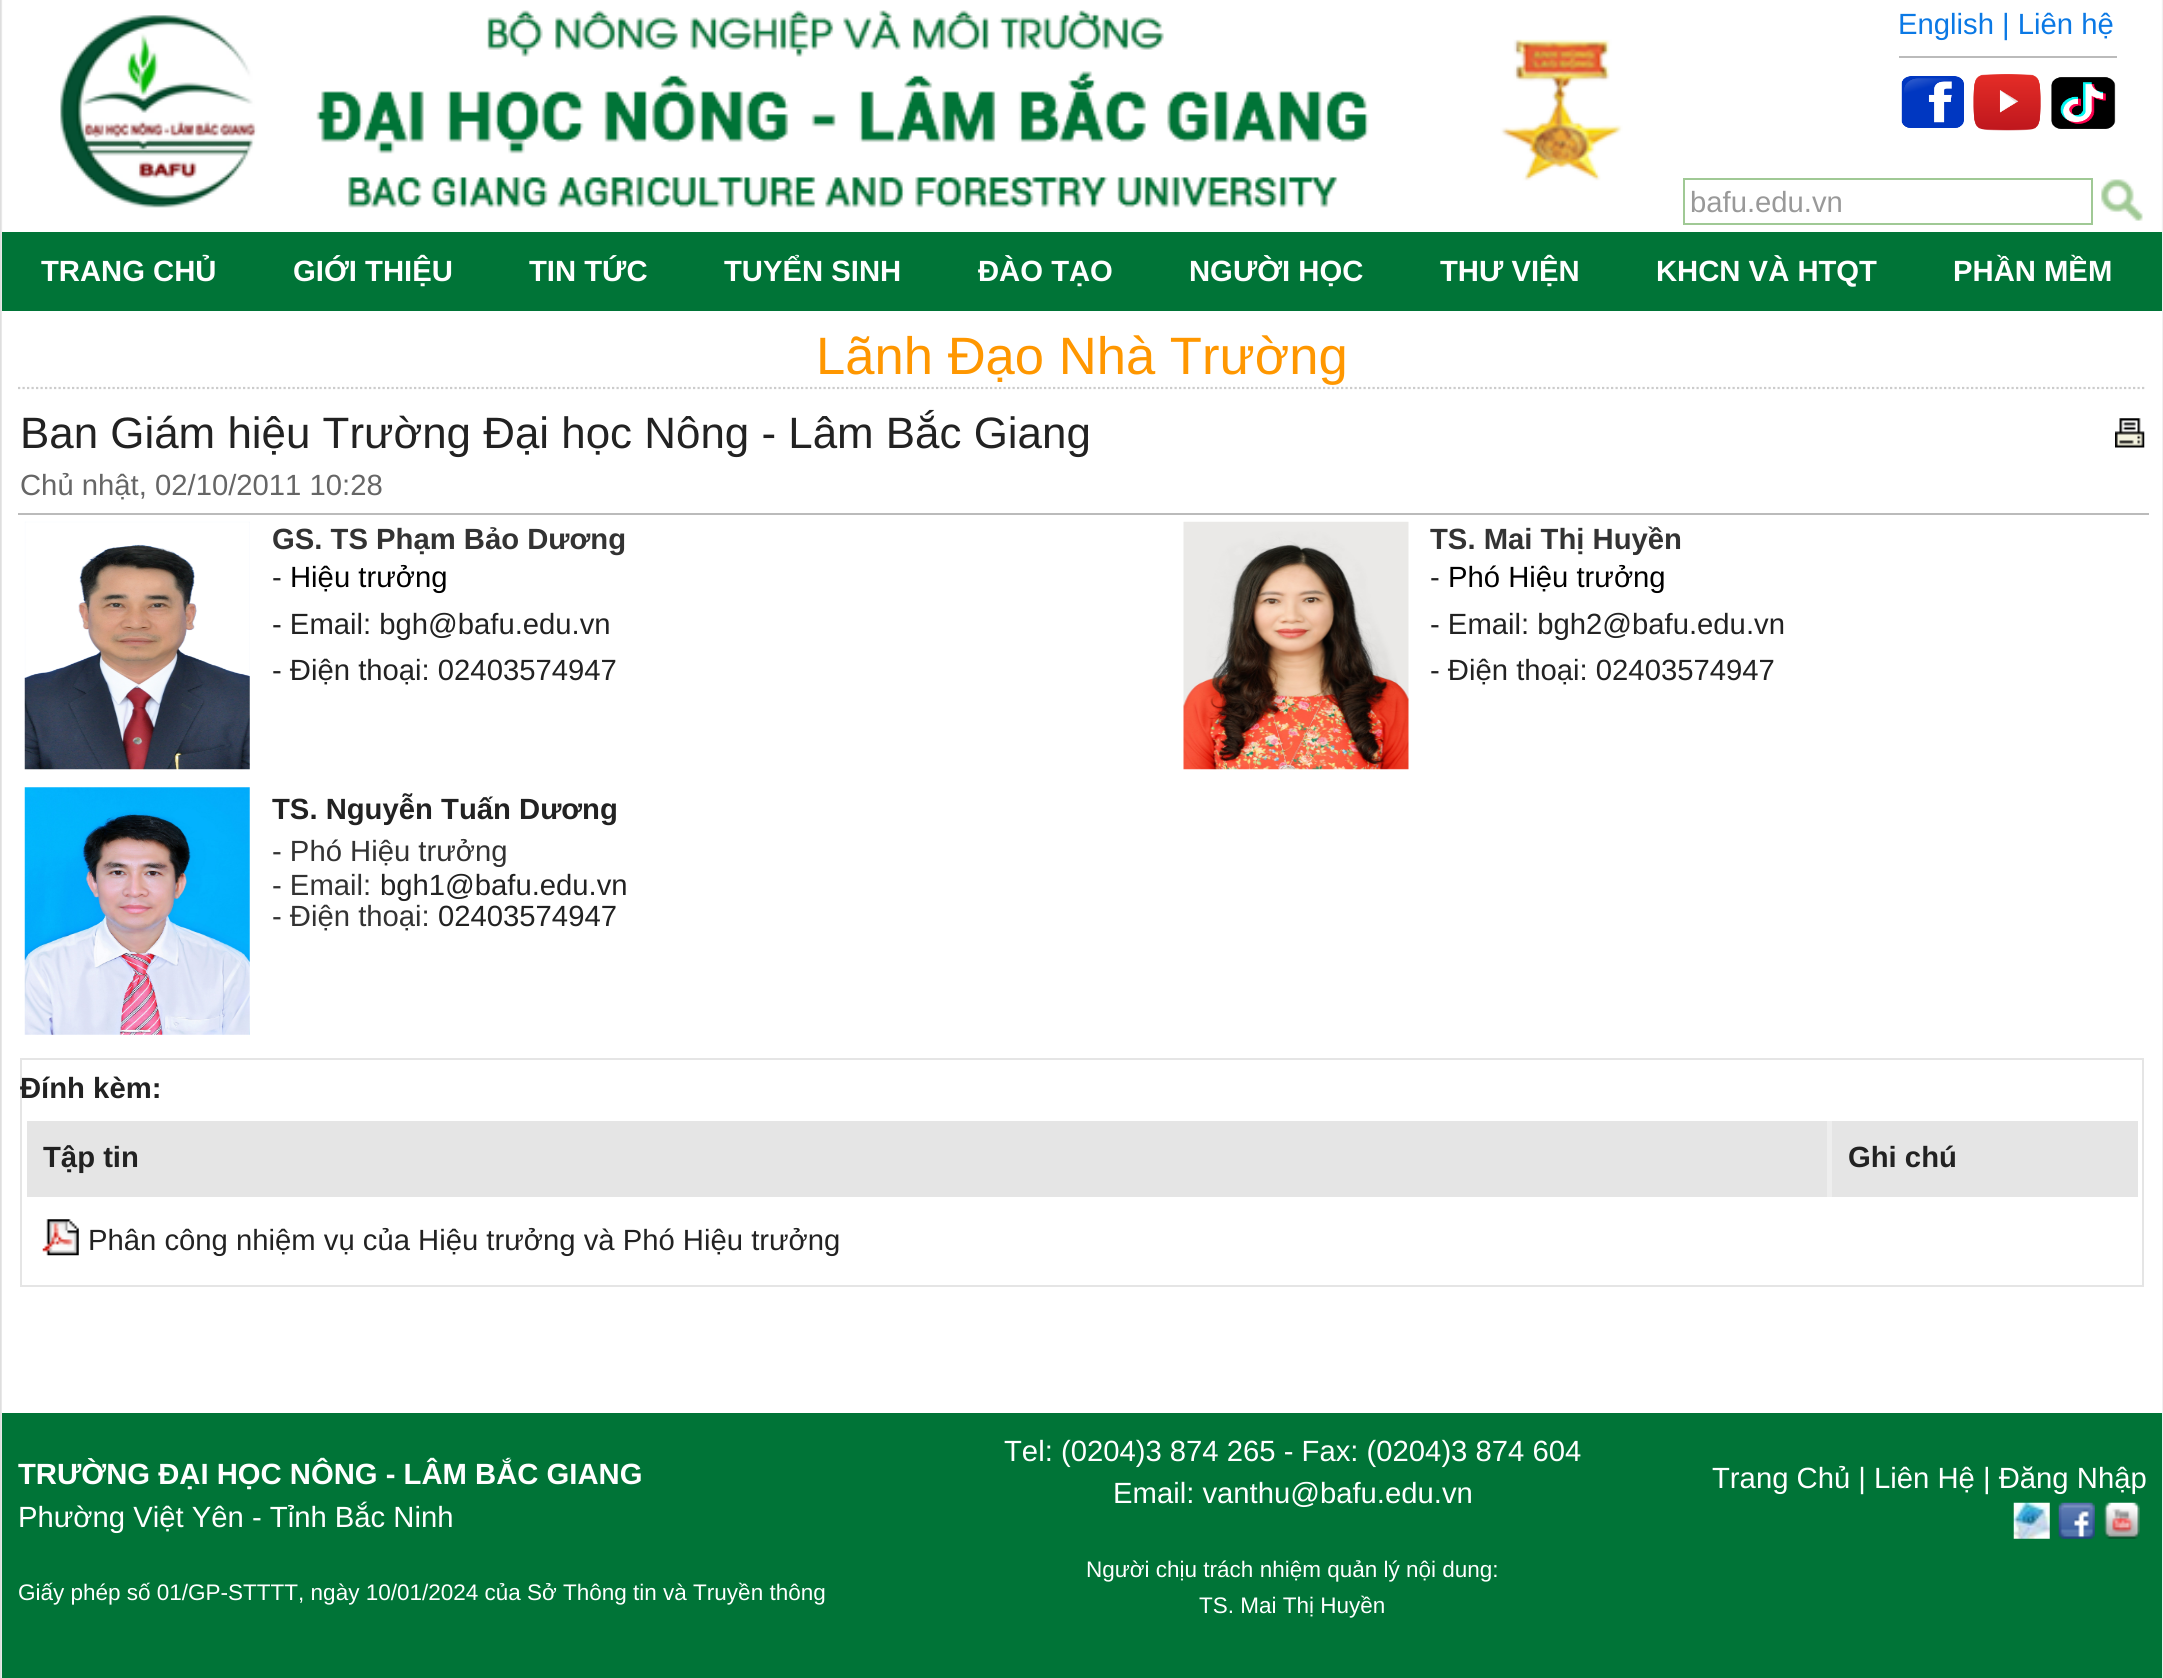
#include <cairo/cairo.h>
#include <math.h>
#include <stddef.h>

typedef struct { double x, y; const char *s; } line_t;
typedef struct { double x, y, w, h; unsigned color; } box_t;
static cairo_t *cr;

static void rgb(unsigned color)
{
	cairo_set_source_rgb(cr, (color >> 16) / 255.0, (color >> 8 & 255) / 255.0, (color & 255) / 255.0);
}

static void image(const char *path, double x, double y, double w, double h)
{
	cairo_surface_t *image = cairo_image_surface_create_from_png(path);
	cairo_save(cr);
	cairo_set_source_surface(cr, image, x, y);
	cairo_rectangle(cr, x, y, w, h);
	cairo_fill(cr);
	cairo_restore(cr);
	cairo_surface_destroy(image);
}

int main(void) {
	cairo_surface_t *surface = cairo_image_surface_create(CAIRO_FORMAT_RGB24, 2163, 1678);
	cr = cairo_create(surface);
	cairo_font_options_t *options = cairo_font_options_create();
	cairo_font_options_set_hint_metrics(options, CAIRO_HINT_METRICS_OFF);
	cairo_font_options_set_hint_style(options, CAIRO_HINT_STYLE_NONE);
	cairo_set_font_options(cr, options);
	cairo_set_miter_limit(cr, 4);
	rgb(0xffffff);
	cairo_paint(cr);
	image("img/1.png", 0, 0, 2163, 1678);
	image("img/2.png", 2, 0, 2141, 232);
	rgb(0xbbbbbb);
	cairo_rectangle(cr, 1899, 56, 218, 2);
	cairo_fill(cr);
	image("img/3.png", 1901, 76, 63, 52);
	image("img/4.png", 1973, 74, 68, 57);
	image("img/5.png", 2051, 77, 65, 52);
	cairo_rectangle(cr, 1684, 179, 408, 45);
	rgb(0xa0c995);
	cairo_stroke(cr);
	rgb(0x007437);
	cairo_rectangle(cr, 2, 232, 2160, 79);
	cairo_fill(cr);
	rgb(0xffffff);
	cairo_rectangle(cr, 2, 311, 2160, 1102);
	cairo_fill(cr);
	cairo_new_path(cr);
	cairo_move_to(cr, 18, 388);
	cairo_line_to(cr, 2146.5, 388);
	rgb(0xcccccc);
	cairo_set_line_width(cr, 2.2);
	cairo_set_dash(cr, (double[]){2.25, 2.25}, 2, 0);
	cairo_stroke(cr);
	image("img/6.png", 2115, 418, 30, 30);
	rgb(0xbbbbbb);
	cairo_rectangle(cr, 18, 513, 2131, 2);
	cairo_fill(cr);
	image("img/7.png", 24, 521, 226, 249);
	image("img/8.png", 1183, 521, 226, 249);
	image("img/9.png", 24, 787, 226, 248);
	cairo_rectangle(cr, 21, 1059, 2122, 227);
	rgb(0xe5e5e5);
	cairo_set_line_width(cr, 2);
	cairo_set_dash(cr, NULL, 0, 0);
	cairo_stroke(cr);
	{
		static const box_t items[] = {
			{1827, 1121, 5, 76, 0xeeeeee},
			{27, 1121, 1800, 76, 0xe5e5e5},
			{1832, 1121, 306, 76, 0xe5e5e5},
		};
		for (size_t i = 0; i < sizeof items / sizeof *items; i++) {
			rgb(items[i].color);
			cairo_rectangle(cr, items[i].x, items[i].y, items[i].w, items[i].h);
			cairo_fill(cr);
		}
	}
	image("img/10.png", 42, 1219, 37, 37);
	rgb(0x007437);
	cairo_rectangle(cr, 2, 1413, 2160, 265);
	cairo_fill(cr);
	image("img/11.png", 2013, 1502, 37, 37);
	image("img/12.png", 2058, 1502, 37, 37);
	image("img/13.png", 2103, 1502, 37, 37);
	cairo_select_font_face(cr, "Liberation Sans", CAIRO_FONT_SLANT_NORMAL, CAIRO_FONT_WEIGHT_NORMAL);
	cairo_set_font_size(cr, 29.25);
	rgb(0x0b79e5);
	cairo_move_to(cr, 1898, 34);
	cairo_show_text(cr, "English | Liên hệ");
	rgb(0x999999);
	cairo_move_to(cr, 1690, 212);
	cairo_show_text(cr, "bafu.edu.vn");
	cairo_select_font_face(cr, "Liberation Sans", CAIRO_FONT_SLANT_NORMAL, CAIRO_FONT_WEIGHT_BOLD);
	rgb(0xffffff);
	{
		static const line_t items[] = {
			{41, 281, "TRANG CHỦ"},
			{293, 281, "GIỚI THIỆU"},
			{529, 281, "TIN TỨC"},
			{724, 281, "TUYỂN SINH"},
			{978, 281, "ĐÀO TẠO"},
			{1189, 281, "NGƯỜI HỌC"},
			{1440, 281, "THƯ VIỆN"},
			{1656, 281, "KHCN VÀ HTQT"},
			{1953, 281, "PHẦN MỀM"},
		};
		for (size_t i = 0; i < sizeof items / sizeof *items; i++) {
			cairo_move_to(cr, items[i].x, items[i].y);
			cairo_show_text(cr, items[i].s);
		}
	}
	cairo_select_font_face(cr, "Liberation Sans", CAIRO_FONT_SLANT_NORMAL, CAIRO_FONT_WEIGHT_NORMAL);
	cairo_set_font_size(cr, 52.6);
	rgb(0xff9700);
	cairo_move_to(cr, 816, 374);
	cairo_show_text(cr, "Lãnh Đạo Nhà Trường");
	cairo_set_font_size(cr, 43.9);
	rgb(0x222222);
	cairo_move_to(cr, 20, 448);
	cairo_show_text(cr, "Ban Giám hiệu Trường Đại học Nông - Lâm Bắc Giang");
	cairo_set_font_size(cr, 29.25);
	rgb(0x666666);
	cairo_move_to(cr, 20, 495);
	cairo_show_text(cr, "Chủ nhật, 02/10/2011 10:28");
	cairo_select_font_face(cr, "Liberation Sans", CAIRO_FONT_SLANT_NORMAL, CAIRO_FONT_WEIGHT_BOLD);
	rgb(0x333333);
	cairo_move_to(cr, 272, 549);
	cairo_show_text(cr, "GS. TS Phạm Bảo Dương");
	cairo_select_font_face(cr, "Liberation Sans", CAIRO_FONT_SLANT_NORMAL, CAIRO_FONT_WEIGHT_NORMAL);
	rgb(0x222222);
	cairo_move_to(cr, 272, 587);
	cairo_show_text(cr, "-");
	rgb(0x000000);
	cairo_move_to(cr, 290, 587);
	cairo_show_text(cr, "Hiệu trưởng");
	rgb(0x222222);
	cairo_move_to(cr, 272, 634);
	cairo_show_text(cr, "- Email: bgh@bafu.edu.vn");
	cairo_move_to(cr, 272, 680);
	cairo_show_text(cr, "- Điện thoại: 02403574947");
	cairo_select_font_face(cr, "Liberation Sans", CAIRO_FONT_SLANT_NORMAL, CAIRO_FONT_WEIGHT_BOLD);
	rgb(0x333333);
	cairo_move_to(cr, 1430, 549);
	cairo_show_text(cr, "TS. Mai Thị Huyền");
	cairo_select_font_face(cr, "Liberation Sans", CAIRO_FONT_SLANT_NORMAL, CAIRO_FONT_WEIGHT_NORMAL);
	rgb(0x222222);
	cairo_move_to(cr, 1430, 587);
	cairo_show_text(cr, "-");
	rgb(0x000000);
	cairo_move_to(cr, 1448, 587);
	cairo_show_text(cr, "Phó Hiệu trưởng");
	rgb(0x222222);
	cairo_move_to(cr, 1430, 634);
	cairo_show_text(cr, "- Email: bgh2@bafu.edu.vn");
	cairo_move_to(cr, 1430, 680);
	cairo_show_text(cr, "- Điện thoại: 02403574947");
	cairo_select_font_face(cr, "Liberation Sans", CAIRO_FONT_SLANT_NORMAL, CAIRO_FONT_WEIGHT_BOLD);
	cairo_move_to(cr, 272, 819);
	cairo_show_text(cr, "TS. Nguyễn Tuấn Dương");
	cairo_select_font_face(cr, "Liberation Sans", CAIRO_FONT_SLANT_NORMAL, CAIRO_FONT_WEIGHT_NORMAL);
	rgb(0x333333);
	cairo_move_to(cr, 272, 861);
	cairo_show_text(cr, "- Phó Hiệu trưởng");
	cairo_move_to(cr, 272, 895);
	cairo_show_text(cr, "- Email:");
	rgb(0x222222);
	cairo_move_to(cr, 380, 895);
	cairo_show_text(cr, "bgh1@bafu.edu.vn");
	rgb(0x333333);
	cairo_move_to(cr, 272, 926);
	cairo_show_text(cr, "- Điện thoại:");
	rgb(0x222222);
	cairo_move_to(cr, 438, 926);
	cairo_show_text(cr, "02403574947");
	cairo_select_font_face(cr, "Liberation Sans", CAIRO_FONT_SLANT_NORMAL, CAIRO_FONT_WEIGHT_BOLD);
	{
		static const line_t items[] = {
			{20, 1098, "Đính kèm:"},
			{43, 1167, "Tập tin"},
			{1848, 1167, "Ghi chú"},
		};
		for (size_t i = 0; i < sizeof items / sizeof *items; i++) {
			cairo_move_to(cr, items[i].x, items[i].y);
			cairo_show_text(cr, items[i].s);
		}
	}
	cairo_select_font_face(cr, "Liberation Sans", CAIRO_FONT_SLANT_NORMAL, CAIRO_FONT_WEIGHT_NORMAL);
	cairo_move_to(cr, 88, 1250);
	cairo_show_text(cr, "Phân công nhiệm vụ của Hiệu trưởng và Phó Hiệu trưởng");
	cairo_select_font_face(cr, "Liberation Sans", CAIRO_FONT_SLANT_NORMAL, CAIRO_FONT_WEIGHT_BOLD);
	rgb(0xffffff);
	cairo_move_to(cr, 18, 1484);
	cairo_show_text(cr, "TRƯỜNG ĐẠI HỌC NÔNG - LÂM BẮC GIANG");
	cairo_select_font_face(cr, "Liberation Sans", CAIRO_FONT_SLANT_NORMAL, CAIRO_FONT_WEIGHT_NORMAL);
	cairo_move_to(cr, 18, 1527);
	cairo_show_text(cr, "Phường Việt Yên - Tỉnh Bắc Ninh");
	cairo_set_font_size(cr, 22.5);
	cairo_move_to(cr, 18, 1600);
	cairo_show_text(cr, "Giấy phép số 01/GP-STTTT, ngày 10/01/2024 của Sở Thông tin và Truyền thông");
	cairo_set_font_size(cr, 29.25);
	cairo_move_to(cr, 1004, 1461);
	cairo_show_text(cr, "Tel: (0204)3 874 265 - Fax: (0204)3 874 604");
	cairo_move_to(cr, 1113, 1503);
	cairo_show_text(cr, "Email: vanthu@bafu.edu.vn");
	cairo_set_font_size(cr, 22.5);
	cairo_move_to(cr, 1086, 1577);
	cairo_show_text(cr, "Người chịu trách nhiệm quản lý nội dung:");
	cairo_move_to(cr, 1199, 1613);
	cairo_show_text(cr, "TS. Mai Thị Huyền");
	cairo_set_font_size(cr, 29.25);
	cairo_move_to(cr, 1712, 1488);
	cairo_show_text(cr, "Trang Chủ | Liên Hệ | Đăng Nhập");
	cairo_surface_write_to_png(surface, "page.png");
	cairo_font_options_destroy(options);
	cairo_destroy(cr);
	cairo_surface_destroy(surface);
	return 0;
}
